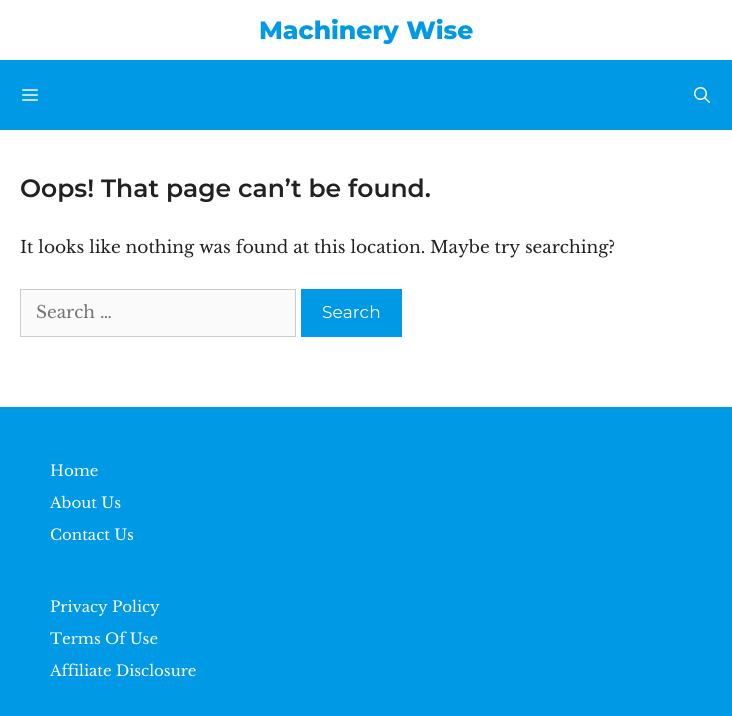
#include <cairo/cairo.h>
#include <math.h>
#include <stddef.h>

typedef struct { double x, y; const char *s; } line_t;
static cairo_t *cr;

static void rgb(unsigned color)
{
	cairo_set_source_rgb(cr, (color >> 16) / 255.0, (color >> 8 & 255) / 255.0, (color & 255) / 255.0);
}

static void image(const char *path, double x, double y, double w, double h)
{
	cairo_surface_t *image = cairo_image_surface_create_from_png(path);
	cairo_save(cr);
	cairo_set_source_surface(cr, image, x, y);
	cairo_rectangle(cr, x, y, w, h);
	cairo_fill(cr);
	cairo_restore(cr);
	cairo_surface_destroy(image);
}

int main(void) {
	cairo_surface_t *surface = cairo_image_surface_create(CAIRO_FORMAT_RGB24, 732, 716);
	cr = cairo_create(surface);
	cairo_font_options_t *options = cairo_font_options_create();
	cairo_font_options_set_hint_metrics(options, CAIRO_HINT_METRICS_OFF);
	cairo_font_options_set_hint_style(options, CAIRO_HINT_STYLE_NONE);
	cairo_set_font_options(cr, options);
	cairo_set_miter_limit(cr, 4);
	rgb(0xffffff);
	cairo_paint(cr);
	rgb(0x0099e6);
	cairo_rectangle(cr, 0, 60, 732, 70);
	cairo_fill(cr);
	image("img/1.png", 22, 89, 16, 12);
	image("img/2.png", 694, 87, 16, 16);
	rgb(0xfafafa);
	cairo_rectangle(cr, 20.5, 289.5, 275, 47);
	cairo_fill_preserve(cr);
	rgb(0xcccccc);
	cairo_set_line_width(cr, 1);
	cairo_stroke(cr);
	rgb(0x0099e6);
	cairo_rectangle(cr, 301, 289, 101, 48);
	cairo_fill(cr);
	cairo_rectangle(cr, 0, 407, 732, 309);
	cairo_fill(cr);
	cairo_select_font_face(cr, "Montserrat ExtraBold", CAIRO_FONT_SLANT_NORMAL, CAIRO_FONT_WEIGHT_NORMAL);
	cairo_set_font_size(cr, 25);
	cairo_move_to(cr, 259, 39);
	cairo_show_text(cr, "Machinery Wise");
	cairo_select_font_face(cr, "Montserrat SemiBold", CAIRO_FONT_SLANT_NORMAL, CAIRO_FONT_WEIGHT_NORMAL);
	rgb(0x222222);
	cairo_move_to(cr, 20, 197);
	cairo_show_text(cr, "Oops! That page can’t be found.");
	cairo_select_font_face(cr, "Libre Baskerville", CAIRO_FONT_SLANT_NORMAL, CAIRO_FONT_WEIGHT_NORMAL);
	cairo_set_font_size(cr, 17);
	cairo_move_to(cr, 20, 253);
	cairo_show_text(cr, "It looks like nothing was found at this location. Maybe try searching?");
	rgb(0x757575);
	cairo_move_to(cr, 36, 318);
	cairo_show_text(cr, "Search …");
	cairo_select_font_face(cr, "Montserrat", CAIRO_FONT_SLANT_NORMAL, CAIRO_FONT_WEIGHT_NORMAL);
	rgb(0xffffff);
	cairo_move_to(cr, 322, 318);
	cairo_show_text(cr, "Search");
	cairo_select_font_face(cr, "Libre Baskerville", CAIRO_FONT_SLANT_NORMAL, CAIRO_FONT_WEIGHT_NORMAL);
	cairo_set_font_size(cr, 15);
	{
		static const line_t items[] = {
			{50, 476, "Home"},
			{50, 508, "About Us"},
			{50, 540, "Contact Us"},
			{50, 612, "Privacy Policy"},
			{50, 644, "Terms Of Use"},
			{50, 676, "Affiliate Disclosure"},
		};
		for (size_t i = 0; i < sizeof items / sizeof *items; i++) {
			cairo_move_to(cr, items[i].x, items[i].y);
			cairo_show_text(cr, items[i].s);
		}
	}
	cairo_surface_write_to_png(surface, "page.png");
	cairo_font_options_destroy(options);
	cairo_destroy(cr);
	cairo_surface_destroy(surface);
	return 0;
}
